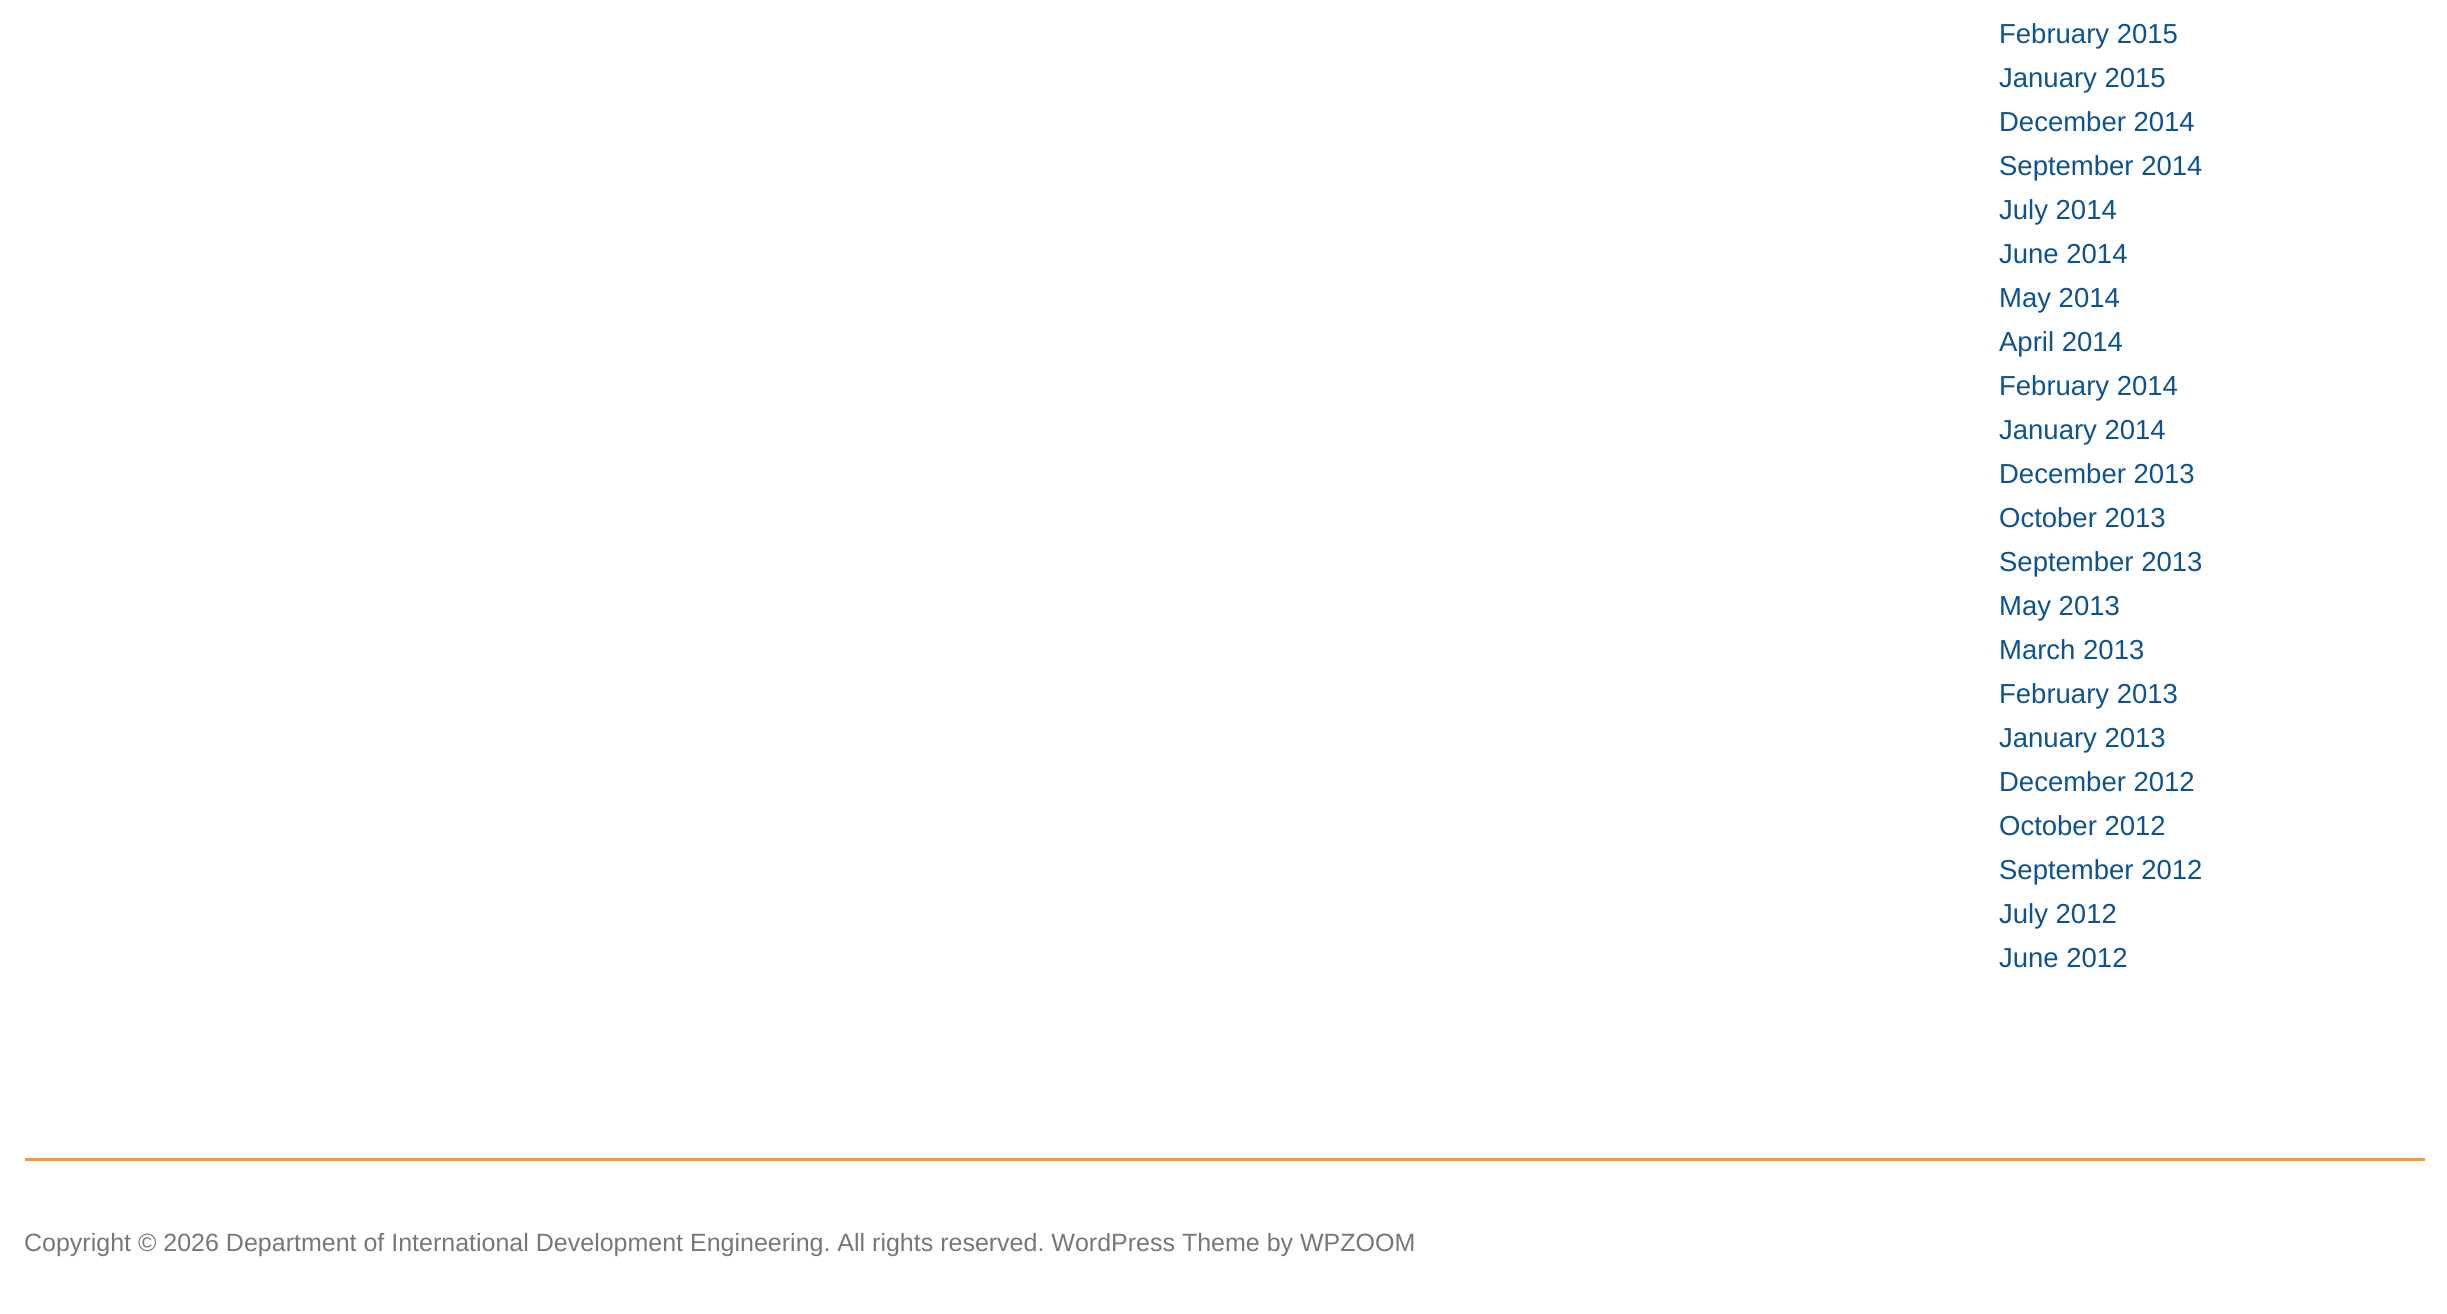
#include <cairo/cairo.h>
#include <math.h>
#include <stddef.h>

typedef struct { double x, y; const char *s; } line_t;
static cairo_t *cr;

static void rgb(unsigned color)
{
	cairo_set_source_rgb(cr, (color >> 16) / 255.0, (color >> 8 & 255) / 255.0, (color & 255) / 255.0);
}

int main(void) {
	cairo_surface_t *surface = cairo_image_surface_create(CAIRO_FORMAT_RGB24, 2447, 1314);
	cr = cairo_create(surface);
	cairo_font_options_t *options = cairo_font_options_create();
	cairo_font_options_set_hint_metrics(options, CAIRO_HINT_METRICS_OFF);
	cairo_font_options_set_hint_style(options, CAIRO_HINT_STYLE_NONE);
	cairo_set_font_options(cr, options);
	cairo_set_miter_limit(cr, 4);
	rgb(0xffffff);
	cairo_paint(cr);
	rgb(0xf99734);
	cairo_rectangle(cr, 25, 1158, 2400, 3);
	cairo_fill(cr);
	cairo_select_font_face(cr, "Liberation Sans", CAIRO_FONT_SLANT_NORMAL, CAIRO_FONT_WEIGHT_NORMAL);
	cairo_set_font_size(cr, 27.5);
	rgb(0x0c5390);
	{
		static const line_t items[] = {
			{1999, 43, "February 2015"},
			{1999, 87, "January 2015"},
			{1999, 131, "December 2014"},
			{1999, 175, "September 2014"},
			{1999, 219, "July 2014"},
			{1999, 263, "June 2014"},
			{1999, 307, "May 2014"},
			{1999, 351, "April 2014"},
			{1999, 395, "February 2014"},
			{1999, 439, "January 2014"},
			{1999, 483, "December 2013"},
			{1999, 527, "October 2013"},
			{1999, 571, "September 2013"},
			{1999, 615, "May 2013"},
			{1999, 659, "March 2013"},
			{1999, 703, "February 2013"},
			{1999, 747, "January 2013"},
			{1999, 791, "December 2012"},
			{1999, 835, "October 2012"},
			{1999, 879, "September 2012"},
			{1999, 923, "July 2012"},
			{1999, 967, "June 2012"},
		};
		for (size_t i = 0; i < sizeof items / sizeof *items; i++) {
			cairo_move_to(cr, items[i].x, items[i].y);
			cairo_show_text(cr, items[i].s);
		}
	}
	cairo_set_font_size(cr, 25);
	rgb(0x777777);
	cairo_move_to(cr, 24, 1251);
	cairo_show_text(cr, "Copyright © 2026 Department of International Development Engineering. All rights reserved. WordPress Theme by WPZOOM");
	cairo_surface_write_to_png(surface, "page.png");
	cairo_font_options_destroy(options);
	cairo_destroy(cr);
	cairo_surface_destroy(surface);
	return 0;
}
